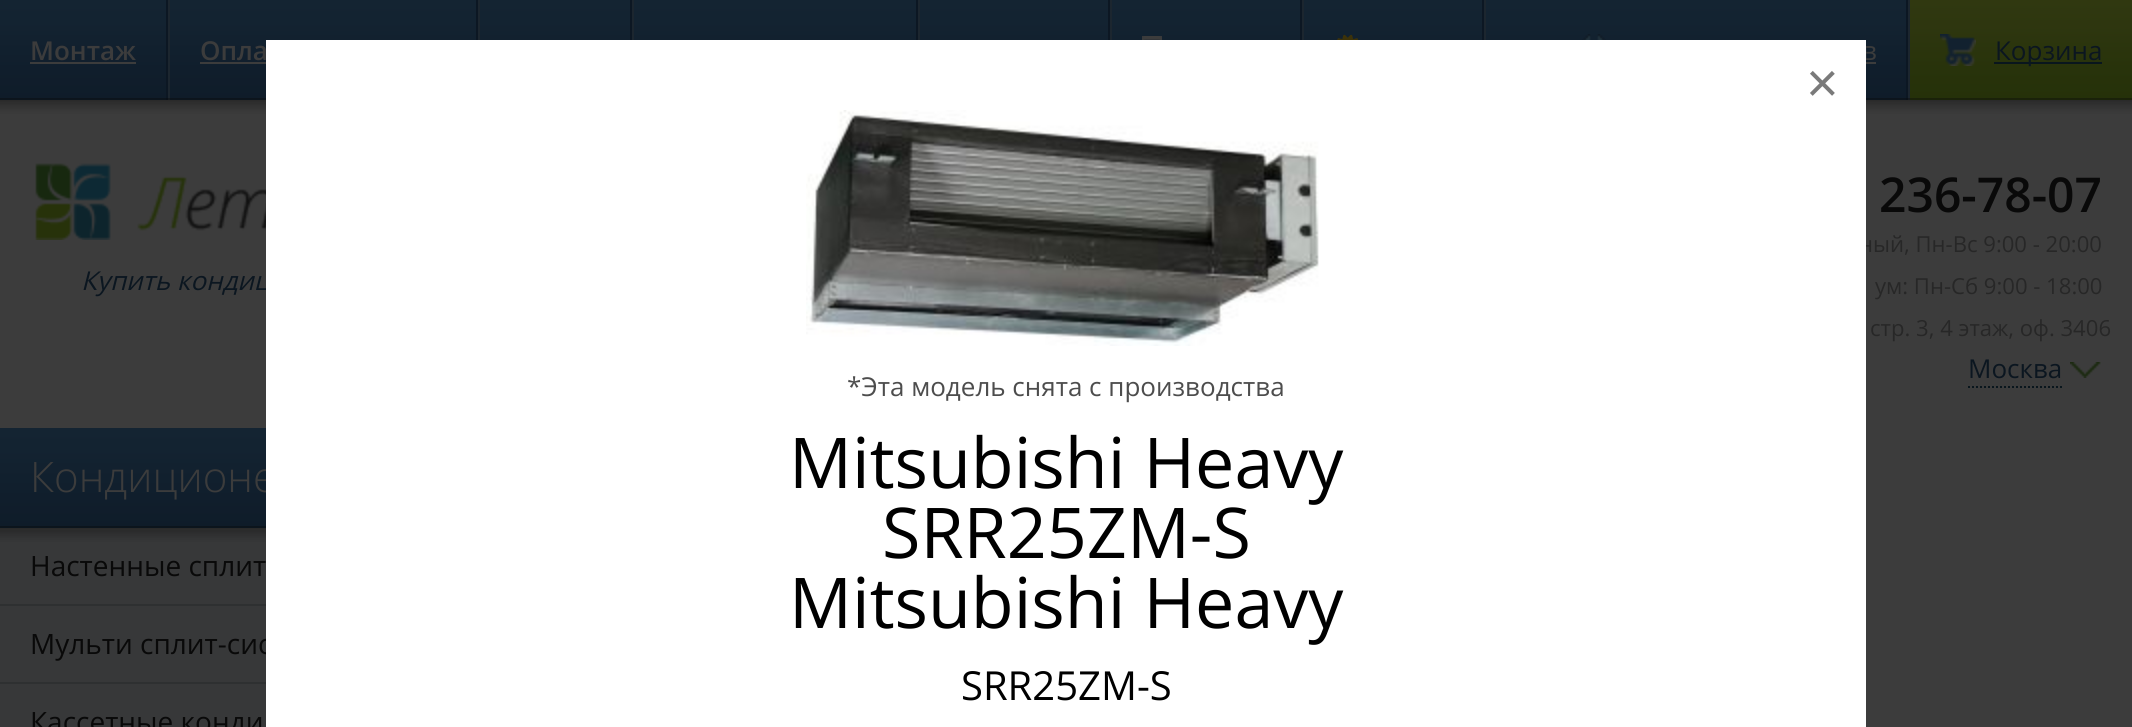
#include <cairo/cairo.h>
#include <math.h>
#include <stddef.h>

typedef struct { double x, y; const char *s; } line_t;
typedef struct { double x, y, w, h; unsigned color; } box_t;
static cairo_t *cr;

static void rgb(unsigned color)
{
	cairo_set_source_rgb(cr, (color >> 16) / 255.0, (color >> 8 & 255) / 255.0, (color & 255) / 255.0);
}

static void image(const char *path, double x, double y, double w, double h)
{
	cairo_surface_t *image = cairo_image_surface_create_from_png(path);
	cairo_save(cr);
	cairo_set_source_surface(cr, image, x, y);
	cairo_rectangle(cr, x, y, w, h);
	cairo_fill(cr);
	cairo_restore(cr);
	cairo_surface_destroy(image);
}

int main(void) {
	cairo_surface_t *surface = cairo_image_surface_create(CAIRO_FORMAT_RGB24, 2132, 727);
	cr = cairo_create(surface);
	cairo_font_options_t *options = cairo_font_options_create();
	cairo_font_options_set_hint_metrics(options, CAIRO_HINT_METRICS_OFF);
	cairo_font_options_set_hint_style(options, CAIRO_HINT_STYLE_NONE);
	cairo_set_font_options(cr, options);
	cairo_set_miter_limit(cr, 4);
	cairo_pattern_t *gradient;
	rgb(0x3c3c3c);
	cairo_paint(cr);
	gradient = cairo_pattern_create_linear(1066, 0, 1066, 100);
	cairo_pattern_add_color_stop_rgba(gradient, 0, 0.078, 0.141, 0.196, 1);
	cairo_pattern_add_color_stop_rgba(gradient, 0.21, 0.075, 0.137, 0.192, 1);
	cairo_pattern_add_color_stop_rgba(gradient, 0.69, 0.063, 0.118, 0.173, 1);
	cairo_pattern_add_color_stop_rgba(gradient, 1, 0.059, 0.11, 0.161, 1);
	cairo_set_source(cr, gradient);
	cairo_pattern_destroy(gradient);
	cairo_rectangle(cr, 0, 0, 1906, 100);
	cairo_fill(cr);
	{
		static const box_t items[] = {
			{168, 0, 2, 100, 0x1c262f},
			{166, 0, 2, 100, 0x0c1723},
			{478, 0, 2, 40, 0x1c262f},
			{476, 0, 2, 40, 0x0c1723},
			{632, 0, 2, 40, 0x1c262f},
			{630, 0, 2, 40, 0x0c1723},
			{918, 0, 2, 40, 0x1c262f},
			{916, 0, 2, 40, 0x0c1723},
			{1110, 0, 2, 40, 0x1c262f},
			{1108, 0, 2, 40, 0x0c1723},
		};
		for (size_t i = 0; i < sizeof items / sizeof *items; i++) {
			rgb(items[i].color);
			cairo_rectangle(cr, items[i].x, items[i].y, items[i].w, items[i].h);
			cairo_fill(cr);
		}
	}
	image("img/1.png", 1142, 36, 20, 4);
	rgb(0x1c262f);
	cairo_rectangle(cr, 1302, 0, 2, 40);
	cairo_fill(cr);
	rgb(0x0c1723);
	cairo_rectangle(cr, 1300, 0, 2, 40);
	cairo_fill(cr);
	image("img/2.png", 1337, 34, 22, 6);
	{
		static const box_t items[] = {
			{1484, 0, 2, 40, 0x1c262f},
			{1482, 0, 2, 40, 0x0c1723},
			{30, 62, 106, 2, 0x3c3c3c},
			{200, 62, 66, 2, 0x3c3c3c},
		};
		for (size_t i = 0; i < sizeof items / sizeof *items; i++) {
			rgb(items[i].color);
			cairo_rectangle(cr, items[i].x, items[i].y, items[i].w, items[i].h);
			cairo_fill(cr);
		}
	}
	image("img/3.png", 1582, 34, 24, 6);
	{
		static const box_t items[] = {
			{1866, 62, 10, 2, 0x3c3c3c},
			{1908, 0, 2, 100, 0x1c262f},
			{1906, 0, 2, 100, 0x0c1723},
		};
		for (size_t i = 0; i < sizeof items / sizeof *items; i++) {
			rgb(items[i].color);
			cairo_rectangle(cr, items[i].x, items[i].y, items[i].w, items[i].h);
			cairo_fill(cr);
		}
	}
	gradient = cairo_pattern_create_linear(2021, 0, 2021, 100);
	cairo_pattern_add_color_stop_rgba(gradient, 0, 0.188, 0.22, 0.063, 1);
	cairo_pattern_add_color_stop_rgba(gradient, 0.26, 0.18, 0.212, 0.059, 1);
	cairo_pattern_add_color_stop_rgba(gradient, 0.68, 0.157, 0.2, 0.043, 1);
	cairo_pattern_add_color_stop_rgba(gradient, 1, 0.145, 0.192, 0.035, 1);
	cairo_set_source(cr, gradient);
	cairo_pattern_destroy(gradient);
	cairo_rectangle(cr, 1910, 0, 222, 100);
	cairo_fill(cr);
	image("img/4.png", 1940, 34, 36, 32);
	rgb(0x09161d);
	cairo_rectangle(cr, 1994, 62, 108, 2);
	cairo_fill(cr);
	image("img/5.png", 0, 98, 2132, 16);
	image("img/6.png", 35, 163, 231, 77);
	cairo_new_path(cr);
	cairo_move_to(cr, 1968, 387);
	cairo_line_to(cr, 2062, 387);
	cairo_set_dash(cr, (double[]){2, 2}, 2, 0);
	cairo_stroke(cr);
	image("img/7.png", 2070, 362, 31, 16);
	gradient = cairo_pattern_create_linear(249, 428, 249, 528);
	cairo_pattern_add_color_stop_rgba(gradient, 0, 0.078, 0.141, 0.196, 1);
	cairo_pattern_add_color_stop_rgba(gradient, 0.21, 0.075, 0.137, 0.192, 1);
	cairo_pattern_add_color_stop_rgba(gradient, 0.69, 0.063, 0.118, 0.173, 1);
	cairo_pattern_add_color_stop_rgba(gradient, 1, 0.059, 0.11, 0.161, 1);
	cairo_set_source(cr, gradient);
	cairo_pattern_destroy(gradient);
	cairo_rectangle(cr, 0, 428, 266, 100);
	cairo_fill(cr);
	rgb(0x373839);
	cairo_rectangle(cr, 0, 530, 266, 197);
	cairo_fill(cr);
	image("img/8.png", 0, 526, 266, 16);
	rgb(0x2e3031);
	cairo_rectangle(cr, 0, 604, 266, 2);
	cairo_fill(cr);
	cairo_rectangle(cr, 0, 682, 266, 2);
	cairo_fill(cr);
	cairo_select_font_face(cr, "Open Sans SemiBold", CAIRO_FONT_SLANT_NORMAL, CAIRO_FONT_WEIGHT_NORMAL);
	cairo_set_font_size(cr, 26);
	rgb(0x3c3c3c);
	cairo_move_to(cr, 30, 60);
	cairo_show_text(cr, "Монтаж");
	cairo_move_to(cr, 200, 60);
	cairo_show_text(cr, "Опла");
	cairo_select_font_face(cr, "Open Sans", CAIRO_FONT_SLANT_NORMAL, CAIRO_FONT_WEIGHT_NORMAL);
	cairo_move_to(cr, 1862, 60);
	cairo_show_text(cr, "в");
	rgb(0x0b1620);
	cairo_move_to(cr, 1995, 60);
	cairo_show_text(cr, "Корзина");
	cairo_select_font_face(cr, "Open Sans", CAIRO_FONT_SLANT_ITALIC, CAIRO_FONT_WEIGHT_NORMAL);
	cairo_move_to(cr, 81, 290);
	cairo_show_text(cr, "Купить кондиц");
	cairo_select_font_face(cr, "Open Sans SemiBold", CAIRO_FONT_SLANT_NORMAL, CAIRO_FONT_WEIGHT_NORMAL);
	cairo_set_font_size(cr, 48);
	rgb(0x090909);
	cairo_move_to(cr, 1879, 212);
	cairo_show_text(cr, "236-78-07");
	cairo_select_font_face(cr, "Open Sans", CAIRO_FONT_SLANT_NORMAL, CAIRO_FONT_WEIGHT_NORMAL);
	cairo_set_font_size(cr, 22.1);
	rgb(0x272727);
	{
		static const line_t items[] = {
			{1859, 252, "ный, Пн-Вс 9:00 - 20:00"},
			{1875, 294, "ум: Пн-Сб 9:00 - 18:00"},
			{1870, 336, "стр. 3, 4 этаж, оф. 3406"},
		};
		for (size_t i = 0; i < sizeof items / sizeof *items; i++) {
			cairo_move_to(cr, items[i].x, items[i].y);
			cairo_show_text(cr, items[i].s);
		}
	}
	cairo_set_font_size(cr, 26);
	rgb(0x0b1620);
	cairo_move_to(cr, 1968, 378);
	cairo_show_text(cr, "Москва");
	cairo_select_font_face(cr, "Open Sans Light", CAIRO_FONT_SLANT_NORMAL, CAIRO_FONT_WEIGHT_NORMAL);
	cairo_set_font_size(cr, 42);
	rgb(0x3c3c3c);
	cairo_move_to(cr, 30, 492);
	cairo_show_text(cr, "Кондиционе");
	cairo_select_font_face(cr, "Open Sans", CAIRO_FONT_SLANT_NORMAL, CAIRO_FONT_WEIGHT_NORMAL);
	cairo_set_font_size(cr, 28);
	rgb(0x090909);
	{
		static const line_t items[] = {
			{30, 576, "Настенные сплит"},
			{30, 654, "Мульти сплит-сис"},
			{30, 732, "Кассетные конди"},
		};
		for (size_t i = 0; i < sizeof items / sizeof *items; i++) {
			cairo_move_to(cr, items[i].x, items[i].y);
			cairo_show_text(cr, items[i].s);
		}
	}
	rgb(0xffffff);
	cairo_rectangle(cr, 266, 40, 1600, 687);
	cairo_fill(cr);
	cairo_select_font_face(cr, "Liberation Sans", CAIRO_FONT_SLANT_NORMAL, CAIRO_FONT_WEIGHT_NORMAL);
	cairo_set_font_size(cr, 56);
	rgb(0x7a7a7a);
	cairo_move_to(cr, 1806, 102);
	cairo_show_text(cr, "×");
	image("img/9.png", 806, 110, 513, 236);
	cairo_select_font_face(cr, "Open Sans", CAIRO_FONT_SLANT_NORMAL, CAIRO_FONT_WEIGHT_NORMAL);
	cairo_set_font_size(cr, 26);
	rgb(0x4d4d4d);
	cairo_move_to(cr, 847, 396);
	cairo_show_text(cr, "*Эта модель снята с производства");
	cairo_set_font_size(cr, 70);
	rgb(0x000000);
	{
		static const line_t items[] = {
			{789, 488, "Mitsubishi Heavy"},
			{882, 558, "SRR25ZM-S"},
			{789, 628, "Mitsubishi Heavy"},
		};
		for (size_t i = 0; i < sizeof items / sizeof *items; i++) {
			cairo_move_to(cr, items[i].x, items[i].y);
			cairo_show_text(cr, items[i].s);
		}
	}
	cairo_set_font_size(cr, 40);
	cairo_move_to(cr, 961, 700);
	cairo_show_text(cr, "SRR25ZM-S");
	cairo_surface_write_to_png(surface, "page.png");
	cairo_font_options_destroy(options);
	cairo_destroy(cr);
	cairo_surface_destroy(surface);
	return 0;
}
